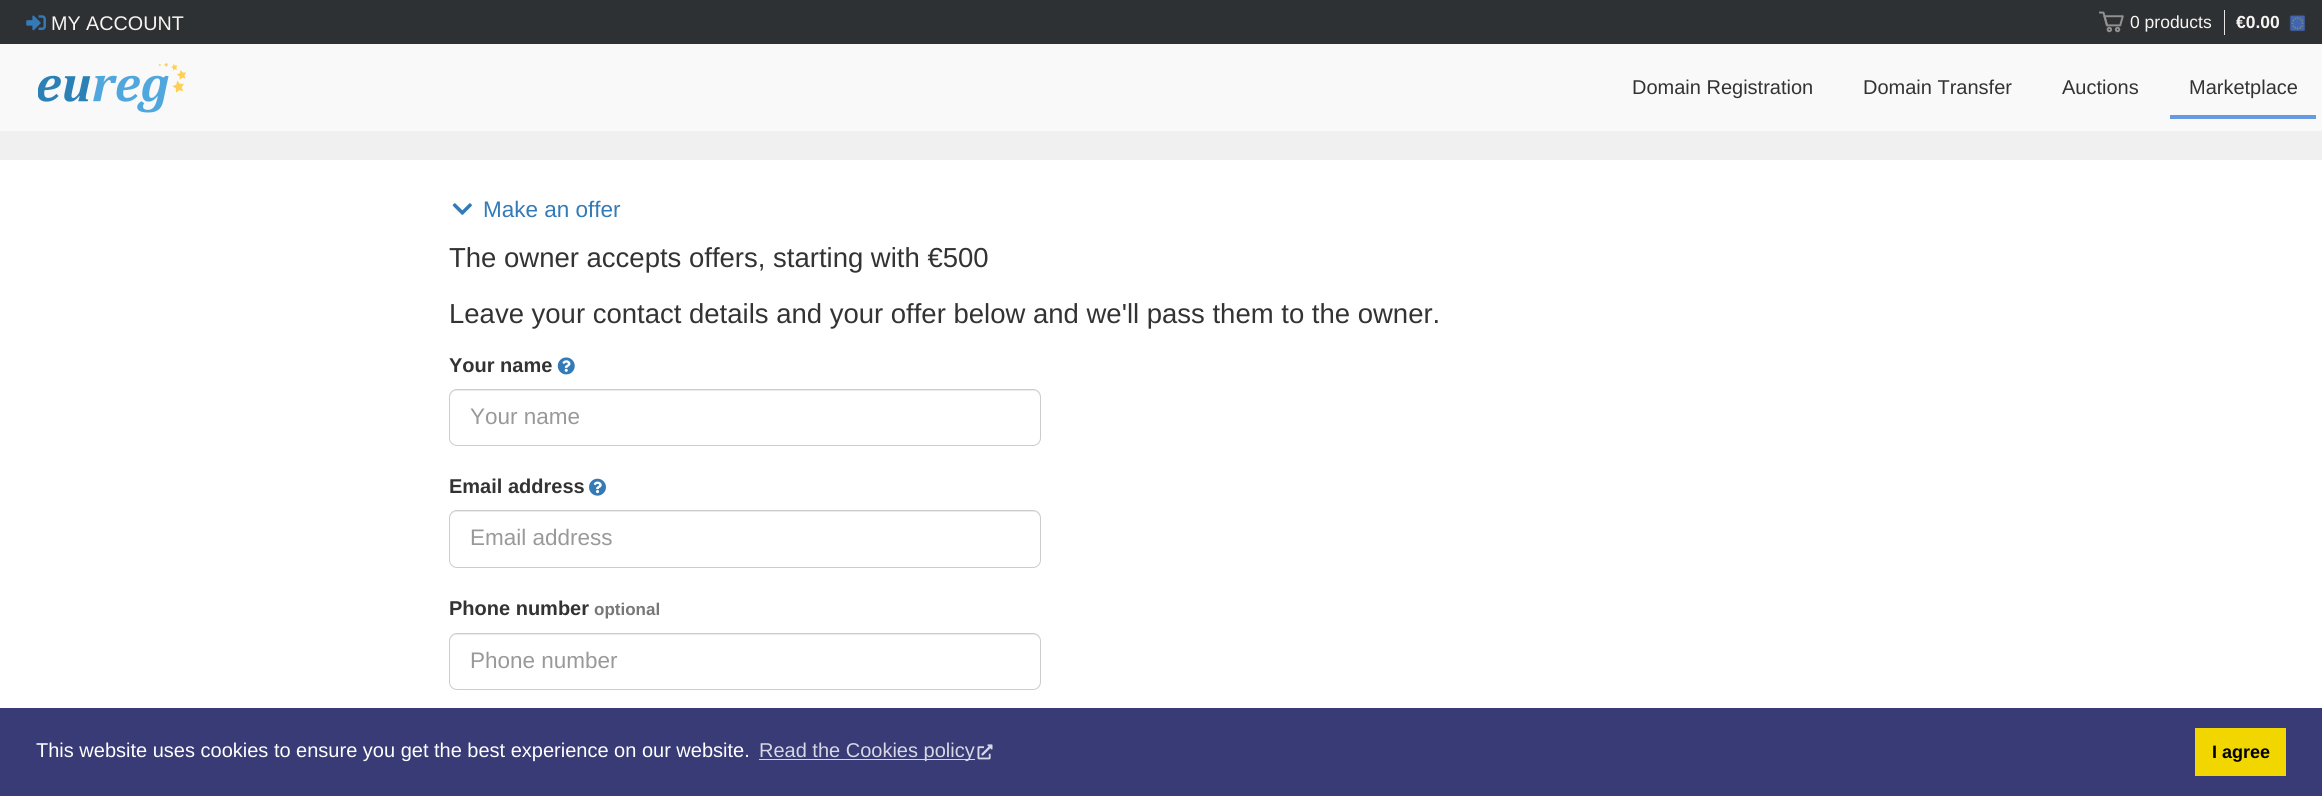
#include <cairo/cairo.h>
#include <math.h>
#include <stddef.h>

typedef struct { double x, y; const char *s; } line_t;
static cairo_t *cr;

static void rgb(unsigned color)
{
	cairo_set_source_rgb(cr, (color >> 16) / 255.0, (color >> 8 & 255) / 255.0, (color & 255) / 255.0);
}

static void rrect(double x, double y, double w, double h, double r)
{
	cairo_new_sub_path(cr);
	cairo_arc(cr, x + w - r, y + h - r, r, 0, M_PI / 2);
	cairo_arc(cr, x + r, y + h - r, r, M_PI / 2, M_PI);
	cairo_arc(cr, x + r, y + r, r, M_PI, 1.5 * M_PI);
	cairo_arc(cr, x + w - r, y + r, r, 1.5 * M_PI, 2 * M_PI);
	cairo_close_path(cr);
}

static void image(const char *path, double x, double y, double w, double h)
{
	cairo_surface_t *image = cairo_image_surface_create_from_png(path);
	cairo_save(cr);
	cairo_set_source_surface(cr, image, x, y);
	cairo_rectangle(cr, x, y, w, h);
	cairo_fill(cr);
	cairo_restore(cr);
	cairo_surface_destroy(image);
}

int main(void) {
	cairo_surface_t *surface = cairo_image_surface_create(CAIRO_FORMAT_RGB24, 2322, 796);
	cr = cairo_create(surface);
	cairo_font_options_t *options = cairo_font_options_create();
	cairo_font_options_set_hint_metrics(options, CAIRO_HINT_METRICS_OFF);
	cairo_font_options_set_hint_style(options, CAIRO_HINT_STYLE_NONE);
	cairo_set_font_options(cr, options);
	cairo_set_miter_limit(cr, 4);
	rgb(0xffffff);
	cairo_paint(cr);
	rgb(0x2e3133);
	cairo_rectangle(cr, 0, 0, 2322, 44);
	cairo_fill(cr);
	image("img/1.png", 26, 15, 20, 16);
	image("img/2.png", 2099, 11, 25, 22);
	rgb(0xe6e6e6);
	cairo_rectangle(cr, 2224, 10, 1, 25);
	cairo_fill(cr);
	image("img/3.png", 2289, 14, 16, 18);
	rgb(0xf9f9f9);
	cairo_rectangle(cr, 0, 44, 2322, 87);
	cairo_fill(cr);
	image("img/4.png", 38, 63, 148, 50);
	rgb(0x669ae1);
	cairo_rectangle(cr, 2170, 115, 146, 4);
	cairo_fill(cr);
	rgb(0xf0f0f0);
	cairo_rectangle(cr, 0, 131, 2322, 29);
	cairo_fill(cr);
	image("img/5.png", 452, 203, 20, 12);
	image("img/6.png", 557, 357, 18, 18);
	rgb(0xececec);
	cairo_new_path(cr);
	cairo_move_to(cr, 456, 391);
	cairo_line_to(cr, 1034, 391);
	cairo_curve_to(cr, 1037, 391, 1040, 394, 1040, 398);
	cairo_line_to(cr, 1040, 396);
	cairo_curve_to(cr, 1040, 393, 1037, 390, 1034, 390);
	cairo_line_to(cr, 456, 390);
	cairo_curve_to(cr, 453, 390, 450, 393, 450, 396);
	cairo_line_to(cr, 450, 398);
	cairo_curve_to(cr, 450, 394, 453, 391, 456, 391);
	cairo_close_path(cr);
	cairo_fill(cr);
	rrect(449.5, 389.5, 591, 56, 7.5);
	rgb(0xcccccc);
	cairo_set_line_width(cr, 1);
	cairo_stroke(cr);
	image("img/7.png", 589, 478, 17, 18);
	rgb(0xececec);
	cairo_new_path(cr);
	cairo_move_to(cr, 456, 512);
	cairo_line_to(cr, 1034, 512);
	cairo_curve_to(cr, 1037, 512, 1040, 515, 1040, 519);
	cairo_line_to(cr, 1040, 517);
	cairo_curve_to(cr, 1040, 514, 1037, 511, 1034, 511);
	cairo_line_to(cr, 456, 511);
	cairo_curve_to(cr, 453, 511, 450, 514, 450, 517);
	cairo_line_to(cr, 450, 519);
	cairo_curve_to(cr, 450, 515, 453, 512, 456, 512);
	cairo_close_path(cr);
	cairo_fill(cr);
	rrect(449.5, 510.5, 591, 57, 7.5);
	rgb(0xcccccc);
	cairo_stroke(cr);
	rgb(0xececec);
	cairo_new_path(cr);
	cairo_move_to(cr, 456, 635);
	cairo_line_to(cr, 1034, 635);
	cairo_curve_to(cr, 1037, 635, 1040, 638, 1040, 641);
	cairo_line_to(cr, 1040, 640);
	cairo_curve_to(cr, 1040, 637, 1037, 634, 1034, 634);
	cairo_line_to(cr, 456, 634);
	cairo_curve_to(cr, 453, 634, 450, 637, 450, 640);
	cairo_line_to(cr, 450, 641);
	cairo_curve_to(cr, 450, 638, 453, 635, 456, 635);
	cairo_close_path(cr);
	cairo_fill(cr);
	rrect(449.5, 633.5, 591, 56, 7.5);
	rgb(0xcccccc);
	cairo_stroke(cr);
	rgb(0x383b75);
	cairo_rectangle(cr, 0, 708, 2322, 88);
	cairo_fill(cr);
	rgb(0xd7d8e3);
	cairo_rectangle(cr, 759, 759, 216, 1);
	cairo_fill(cr);
	image("img/8.png", 977, 744, 16, 16);
	rgb(0xf1d600);
	cairo_rectangle(cr, 2195, 728, 91, 48);
	cairo_fill(cr);
	cairo_select_font_face(cr, "Liberation Sans", CAIRO_FONT_SLANT_NORMAL, CAIRO_FONT_WEIGHT_NORMAL);
	cairo_set_font_size(cr, 19.75);
	rgb(0xf7f5f2);
	cairo_move_to(cr, 51, 30);
	cairo_show_text(cr, "MY ACCOUNT");
	cairo_set_font_size(cr, 17.5);
	cairo_move_to(cr, 2130, 28);
	cairo_show_text(cr, "0 products");
	cairo_select_font_face(cr, "Liberation Sans", CAIRO_FONT_SLANT_NORMAL, CAIRO_FONT_WEIGHT_BOLD);
	cairo_move_to(cr, 2236, 28);
	cairo_show_text(cr, "€0.00");
	cairo_select_font_face(cr, "Liberation Sans", CAIRO_FONT_SLANT_NORMAL, CAIRO_FONT_WEIGHT_NORMAL);
	cairo_set_font_size(cr, 20);
	rgb(0x333333);
	{
		static const line_t items[] = {
			{1632, 94, "Domain Registration"},
			{1863, 94, "Domain Transfer"},
			{2062, 94, "Auctions"},
			{2189, 94, "Marketplace"},
		};
		for (size_t i = 0; i < sizeof items / sizeof *items; i++) {
			cairo_move_to(cr, items[i].x, items[i].y);
			cairo_show_text(cr, items[i].s);
		}
	}
	cairo_set_font_size(cr, 22.5);
	rgb(0x337ab7);
	cairo_move_to(cr, 483, 217);
	cairo_show_text(cr, "Make an offer");
	cairo_set_font_size(cr, 27.5);
	rgb(0x333333);
	cairo_move_to(cr, 449, 267);
	cairo_show_text(cr, "The owner accepts offers, starting with €500");
	cairo_move_to(cr, 449, 323);
	cairo_show_text(cr, "Leave your contact details and your offer below and we'll pass them to the owner.");
	cairo_select_font_face(cr, "Liberation Sans", CAIRO_FONT_SLANT_NORMAL, CAIRO_FONT_WEIGHT_BOLD);
	cairo_set_font_size(cr, 20);
	cairo_move_to(cr, 449, 372);
	cairo_show_text(cr, "Your name");
	cairo_select_font_face(cr, "Liberation Sans", CAIRO_FONT_SLANT_NORMAL, CAIRO_FONT_WEIGHT_NORMAL);
	cairo_set_font_size(cr, 22.5);
	rgb(0x999999);
	cairo_move_to(cr, 470, 424);
	cairo_show_text(cr, "Your name");
	cairo_select_font_face(cr, "Liberation Sans", CAIRO_FONT_SLANT_NORMAL, CAIRO_FONT_WEIGHT_BOLD);
	cairo_set_font_size(cr, 20);
	rgb(0x333333);
	cairo_move_to(cr, 449, 493);
	cairo_show_text(cr, "Email address");
	cairo_select_font_face(cr, "Liberation Sans", CAIRO_FONT_SLANT_NORMAL, CAIRO_FONT_WEIGHT_NORMAL);
	cairo_set_font_size(cr, 22.5);
	rgb(0x999999);
	cairo_move_to(cr, 470, 545);
	cairo_show_text(cr, "Email address");
	cairo_select_font_face(cr, "Liberation Sans", CAIRO_FONT_SLANT_NORMAL, CAIRO_FONT_WEIGHT_BOLD);
	cairo_set_font_size(cr, 20);
	rgb(0x333333);
	cairo_move_to(cr, 449, 615);
	cairo_show_text(cr, "Phone number");
	cairo_set_font_size(cr, 17);
	rgb(0x777777);
	cairo_move_to(cr, 594, 615);
	cairo_show_text(cr, "optional");
	cairo_select_font_face(cr, "Liberation Sans", CAIRO_FONT_SLANT_NORMAL, CAIRO_FONT_WEIGHT_NORMAL);
	cairo_set_font_size(cr, 22.5);
	rgb(0x999999);
	cairo_move_to(cr, 470, 668);
	cairo_show_text(cr, "Phone number");
	cairo_set_font_size(cr, 20);
	rgb(0xffffff);
	cairo_move_to(cr, 36, 757);
	cairo_show_text(cr, "This website uses cookies to ensure you get the best experience on our website.");
	rgb(0xd7d8e3);
	cairo_move_to(cr, 759, 757);
	cairo_show_text(cr, "Read the Cookies policy");
	cairo_select_font_face(cr, "Liberation Sans", CAIRO_FONT_SLANT_NORMAL, CAIRO_FONT_WEIGHT_BOLD);
	cairo_set_font_size(cr, 18);
	rgb(0x000000);
	cairo_move_to(cr, 2212, 758);
	cairo_show_text(cr, "I agree");
	cairo_surface_write_to_png(surface, "page.png");
	cairo_font_options_destroy(options);
	cairo_destroy(cr);
	cairo_surface_destroy(surface);
	return 0;
}
